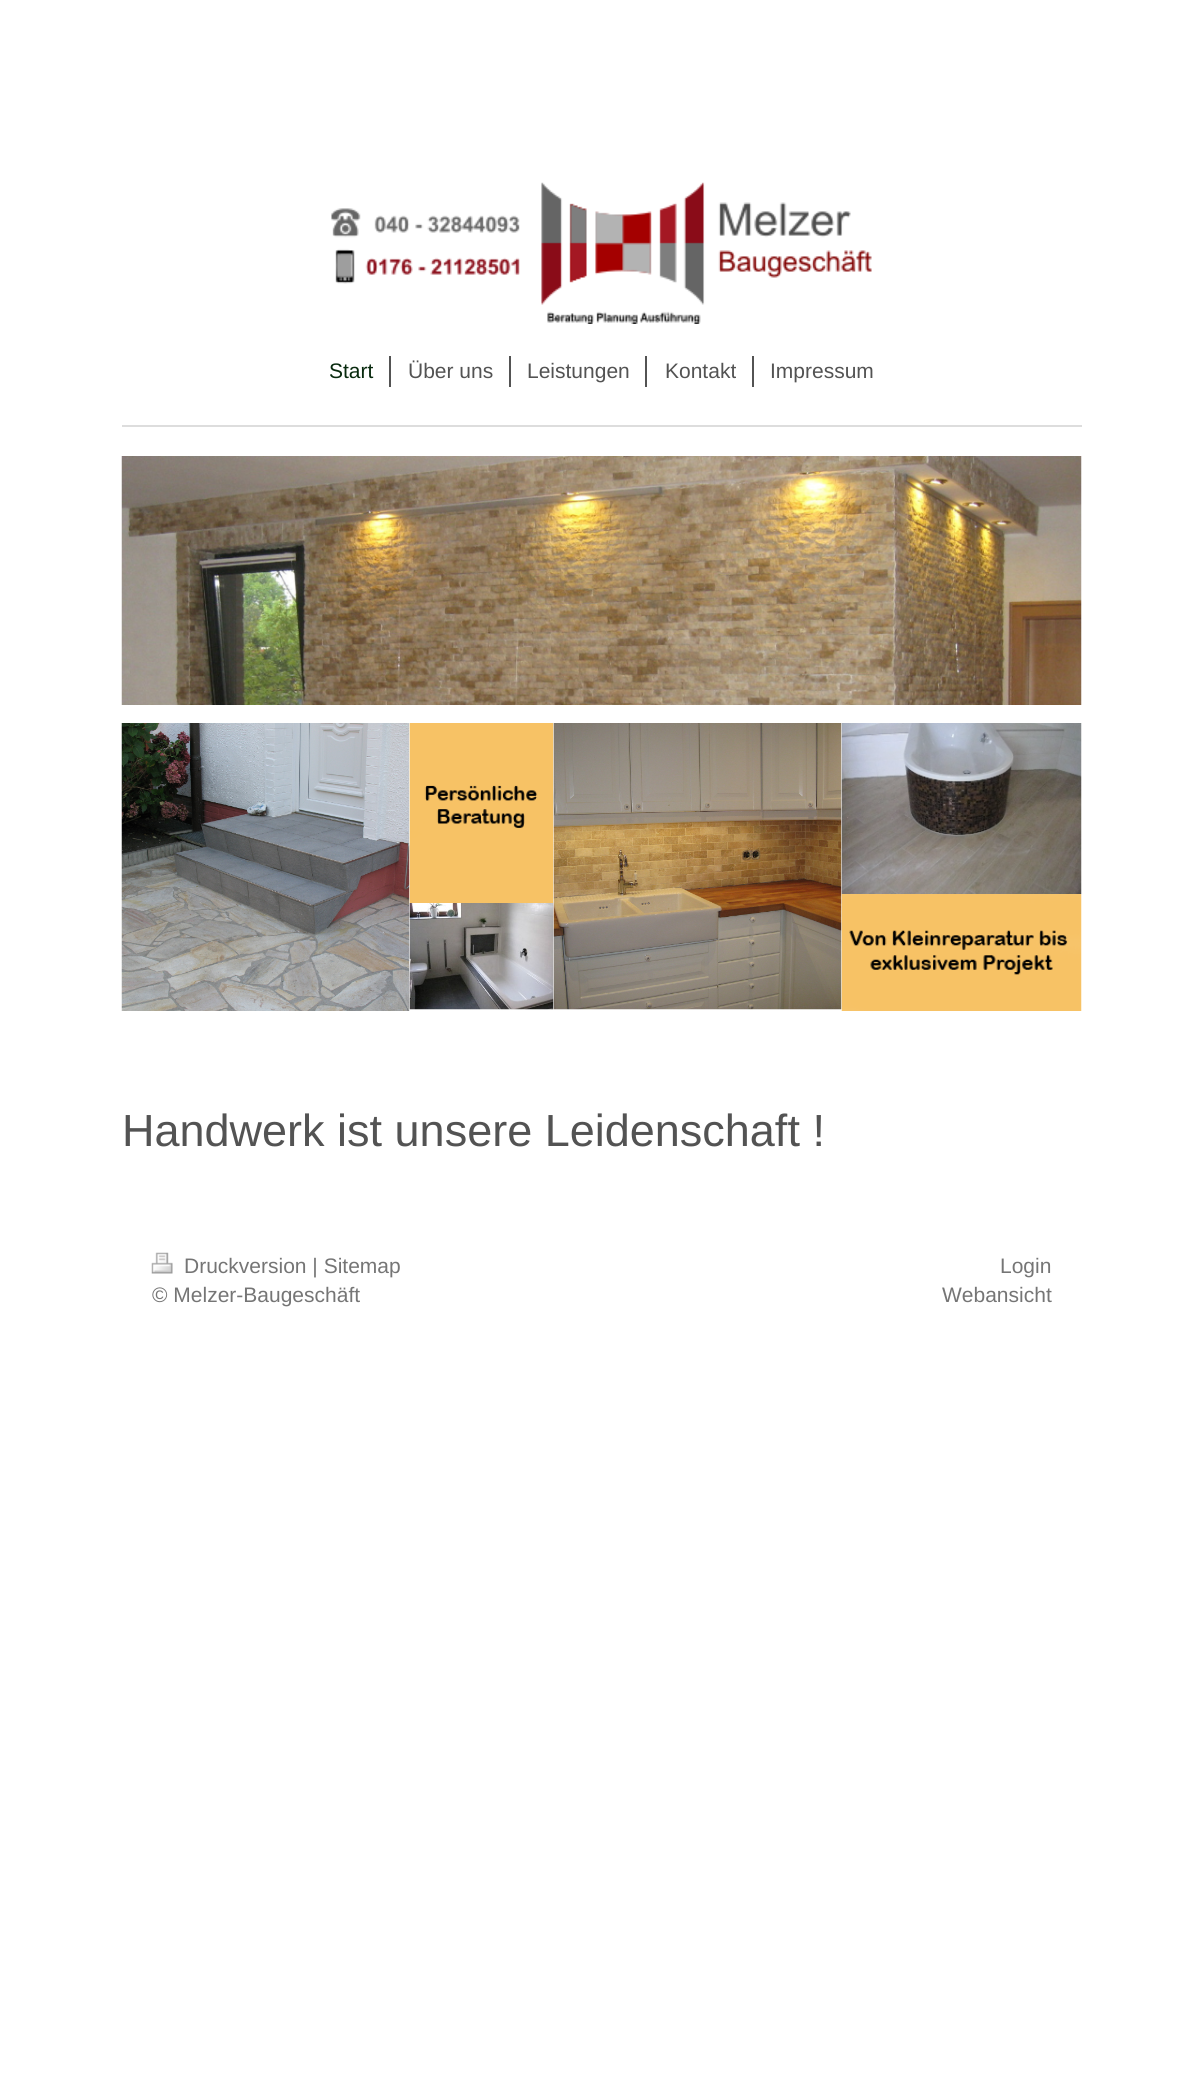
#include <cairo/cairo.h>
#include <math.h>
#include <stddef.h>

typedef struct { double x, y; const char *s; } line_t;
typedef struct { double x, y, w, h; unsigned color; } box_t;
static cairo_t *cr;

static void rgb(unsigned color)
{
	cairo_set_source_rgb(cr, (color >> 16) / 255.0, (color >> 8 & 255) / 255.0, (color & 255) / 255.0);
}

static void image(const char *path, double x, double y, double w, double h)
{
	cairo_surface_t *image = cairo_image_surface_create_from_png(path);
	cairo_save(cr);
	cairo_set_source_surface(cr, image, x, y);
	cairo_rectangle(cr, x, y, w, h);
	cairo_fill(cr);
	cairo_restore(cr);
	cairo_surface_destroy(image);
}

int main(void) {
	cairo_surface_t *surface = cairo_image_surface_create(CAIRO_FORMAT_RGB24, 1202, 2098);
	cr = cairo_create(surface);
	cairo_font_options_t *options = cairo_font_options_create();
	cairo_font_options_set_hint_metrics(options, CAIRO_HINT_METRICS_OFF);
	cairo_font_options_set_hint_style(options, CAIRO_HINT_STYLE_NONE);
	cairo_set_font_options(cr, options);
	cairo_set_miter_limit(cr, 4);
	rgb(0xffffff);
	cairo_paint(cr);
	image("img/1.png", 331, 182, 541, 142);
	{
		static const box_t items[] = {
			{122, 425, 960, 2, 0xdddddd},
			{389, 356, 2, 31, 0x535353},
			{509, 356, 2, 31, 0x535353},
			{645, 356, 2, 31, 0x535353},
			{752, 356, 2, 31, 0x535353},
		};
		for (size_t i = 0; i < sizeof items / sizeof *items; i++) {
			rgb(items[i].color);
			cairo_rectangle(cr, items[i].x, items[i].y, items[i].w, items[i].h);
			cairo_fill(cr);
		}
	}
	image("img/2.png", 121, 456, 961, 249);
	image("img/3.png", 121, 723, 289, 288);
	image("img/4.png", 409, 723, 145, 180);
	image("img/5.png", 409, 903, 145, 107);
	image("img/6.png", 553, 723, 289, 287);
	image("img/7.png", 841, 723, 241, 171);
	image("img/8.png", 841, 894, 241, 117);
	image("img/9.png", 151, 1252, 22, 22);
	cairo_select_font_face(cr, "Liberation Sans", CAIRO_FONT_SLANT_NORMAL, CAIRO_FONT_WEIGHT_NORMAL);
	cairo_set_font_size(cr, 21);
	rgb(0x082a0e);
	cairo_move_to(cr, 329, 378);
	cairo_show_text(cr, "Start");
	rgb(0x535353);
	{
		static const line_t items[] = {
			{408, 378, "Über uns"},
			{527, 378, "Leistungen"},
			{665, 378, "Kontakt"},
			{770, 378, "Impressum"},
		};
		for (size_t i = 0; i < sizeof items / sizeof *items; i++) {
			cairo_move_to(cr, items[i].x, items[i].y);
			cairo_show_text(cr, items[i].s);
		}
	}
	cairo_set_font_size(cr, 45);
	cairo_move_to(cr, 122, 1146);
	cairo_show_text(cr, "Handwerk ist unsere Leidenschaft !");
	cairo_set_font_size(cr, 21);
	rgb(0x757575);
	{
		static const line_t items[] = {
			{184, 1273, "Druckversion | Sitemap"},
			{152, 1302, "© Melzer-Baugeschäft"},
			{1000, 1273, "Login"},
			{942, 1302, "Webansicht"},
		};
		for (size_t i = 0; i < sizeof items / sizeof *items; i++) {
			cairo_move_to(cr, items[i].x, items[i].y);
			cairo_show_text(cr, items[i].s);
		}
	}
	cairo_surface_write_to_png(surface, "page.png");
	cairo_font_options_destroy(options);
	cairo_destroy(cr);
	cairo_surface_destroy(surface);
	return 0;
}
